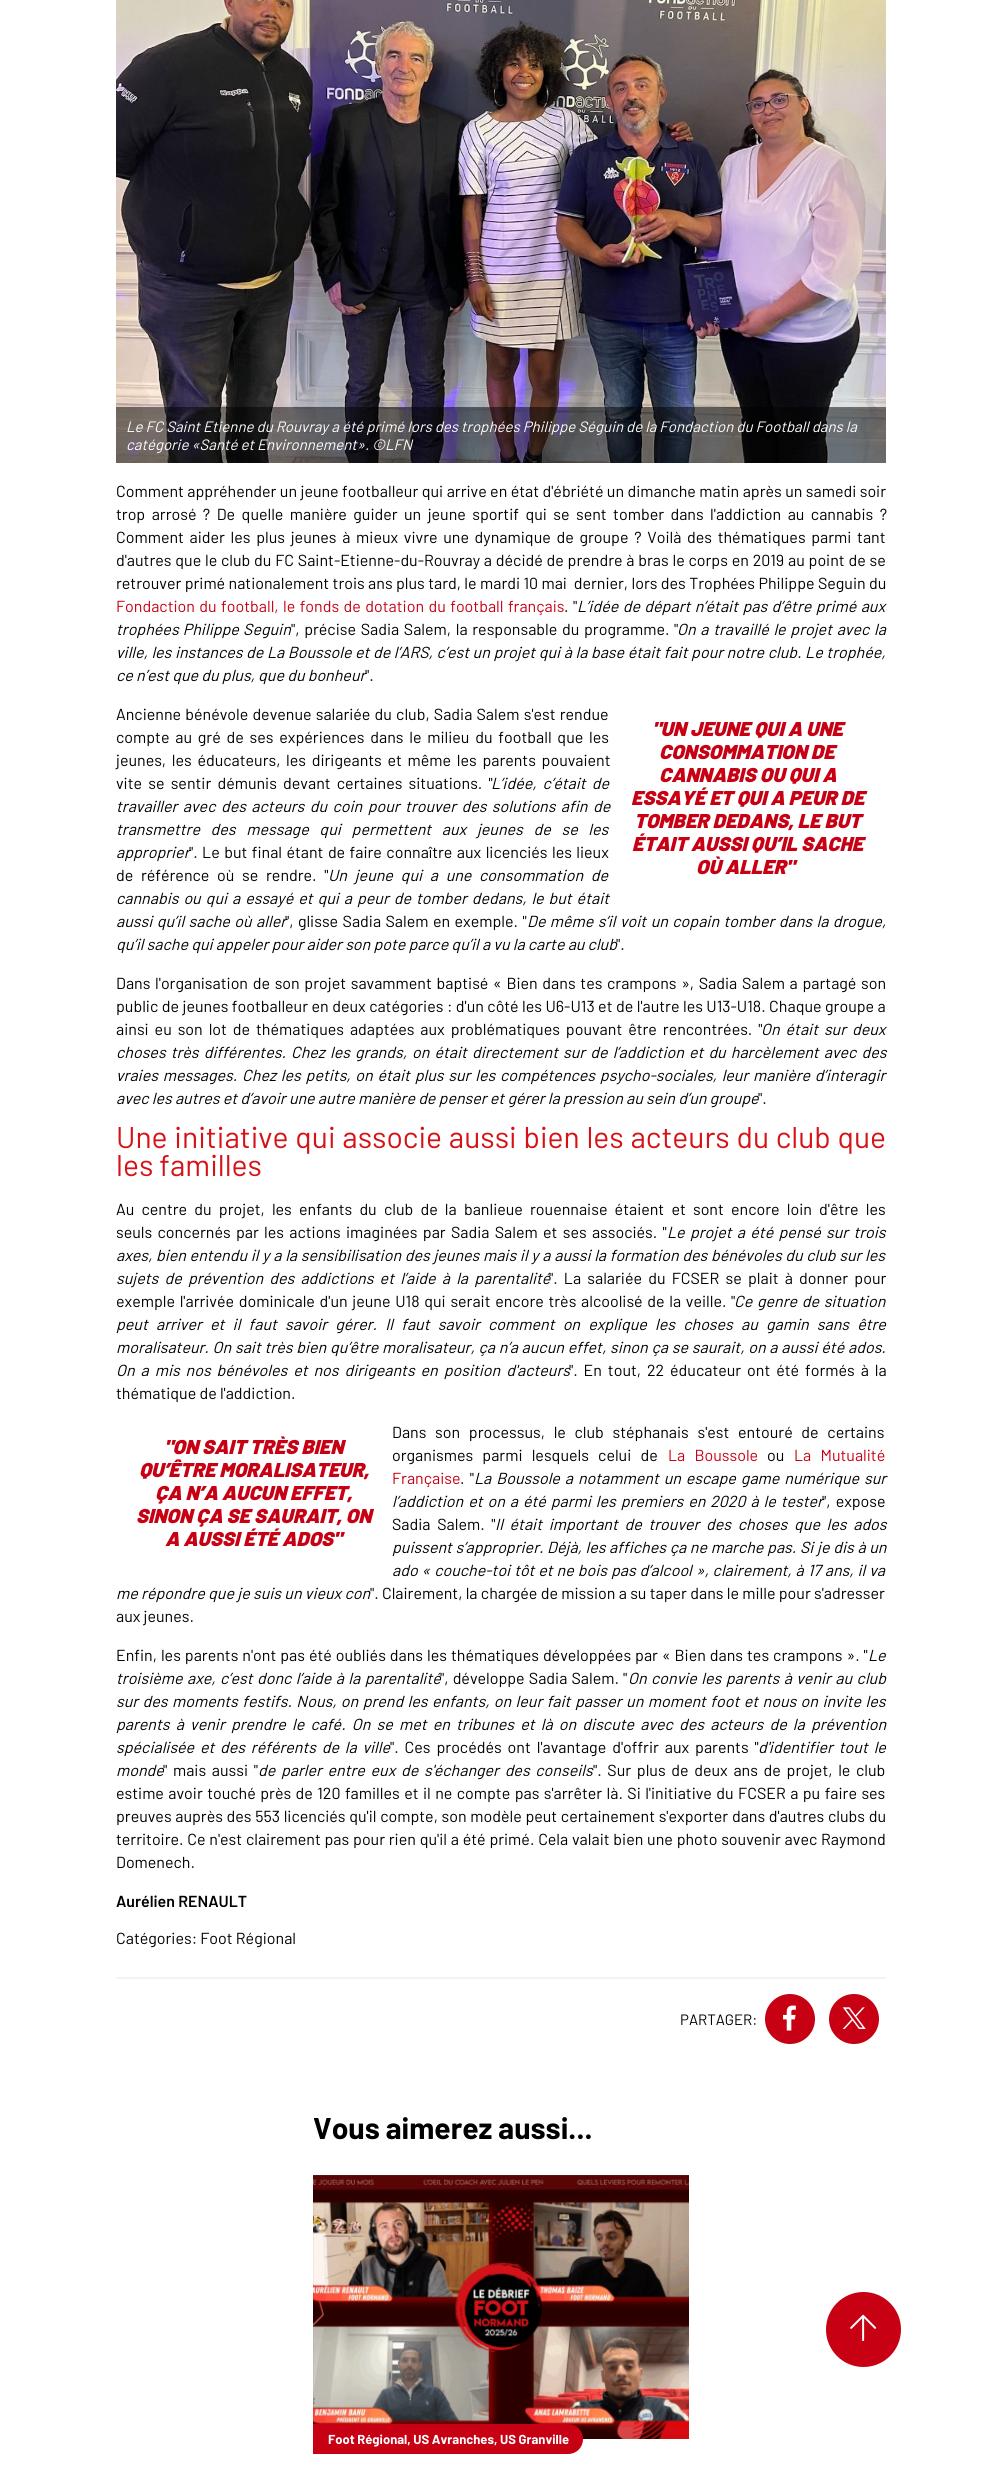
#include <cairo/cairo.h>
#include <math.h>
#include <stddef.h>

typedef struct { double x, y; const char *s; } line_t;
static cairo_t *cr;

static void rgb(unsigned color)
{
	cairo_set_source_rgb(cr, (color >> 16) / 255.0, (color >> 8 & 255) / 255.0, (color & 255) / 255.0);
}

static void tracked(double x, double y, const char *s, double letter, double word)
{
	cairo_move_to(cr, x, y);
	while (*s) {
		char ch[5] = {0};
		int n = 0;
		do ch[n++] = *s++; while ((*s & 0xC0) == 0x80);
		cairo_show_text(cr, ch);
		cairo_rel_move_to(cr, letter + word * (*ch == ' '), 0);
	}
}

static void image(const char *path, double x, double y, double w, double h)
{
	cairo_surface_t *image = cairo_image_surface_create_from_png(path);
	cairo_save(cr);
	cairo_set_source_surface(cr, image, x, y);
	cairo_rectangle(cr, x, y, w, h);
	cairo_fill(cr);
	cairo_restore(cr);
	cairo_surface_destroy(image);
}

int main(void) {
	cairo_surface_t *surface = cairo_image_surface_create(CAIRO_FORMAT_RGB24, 1001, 2467);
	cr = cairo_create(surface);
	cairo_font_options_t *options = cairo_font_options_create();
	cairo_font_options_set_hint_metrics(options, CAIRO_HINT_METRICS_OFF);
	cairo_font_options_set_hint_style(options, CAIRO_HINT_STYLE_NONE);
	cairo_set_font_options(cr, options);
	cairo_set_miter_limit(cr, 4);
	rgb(0xffffff);
	cairo_paint(cr);
	image("img/1.png", 116, 0, 770, 463);
	cairo_set_source_rgba(cr, 0, 0, 0, 0.5);
	cairo_rectangle(cr, 116, 407, 770, 56);
	cairo_fill(cr);
	rgb(0xf4f4f4);
	cairo_rectangle(cr, 116, 1977, 770, 2);
	cairo_fill(cr);
	rgb(0xc70013);
	cairo_arc(cr, 790, 2019, 25, 0, 2 * M_PI);
	cairo_fill(cr);
	image("img/2.png", 783, 2005, 13, 26);
	cairo_arc(cr, 854, 2019, 25, 0, 2 * M_PI);
	cairo_fill(cr);
	image("img/3.png", 842, 2007, 24, 22);
	image("img/4.png", 313, 2175, 376, 264);
	cairo_new_path(cr);
	cairo_move_to(cr, 313, 2424);
	cairo_line_to(cr, 568, 2424);
	cairo_curve_to(cr, 576.5, 2424, 583, 2430.5, 583, 2439);
	cairo_curve_to(cr, 583, 2447.5, 576.5, 2454, 568, 2454);
	cairo_line_to(cr, 313, 2454);
	cairo_close_path(cr);
	cairo_fill(cr);
	cairo_arc(cr, 863.5, 2329.5, 37.5, 0, 2 * M_PI);
	cairo_fill(cr);
	image("img/5.png", 850, 2314, 27, 27);
	cairo_select_font_face(cr, "Barlow", CAIRO_FONT_SLANT_ITALIC, CAIRO_FONT_WEIGHT_NORMAL);
	cairo_set_font_size(cr, 15);
	rgb(0xffffff);
	cairo_move_to(cr, 126, 432);
	cairo_show_text(cr, "Le FC Saint Etienne du Rouvray a été primé lors des trophées Philippe Séguin de la Fondaction du Football dans la");
	cairo_move_to(cr, 126, 450);
	cairo_show_text(cr, "catégorie «Santé et Environnement». ©LFN");
	cairo_select_font_face(cr, "Barlow", CAIRO_FONT_SLANT_NORMAL, CAIRO_FONT_WEIGHT_NORMAL);
	cairo_set_font_size(cr, 16);
	rgb(0x000000);
	tracked(116, 497, "Comment appréhender un jeune footballeur qui arrive en état d'ébriété un dimanche matin après un samedi soir", 0, 0.25);
	tracked(116, 520, "trop arrosé ? De quelle manière guider un jeune sportif qui se sent tomber dans l'addiction au cannabis ?", 0, 3.25);
	tracked(116, 543, "Comment aider les plus jeunes à mieux vivre une dynamique de groupe ? Voilà des thématiques parmi tant", 0, 2.5);
	tracked(116, 566, "d'autres que le club du FC Saint-Etienne-du-Rouvray a décidé de prendre à bras le corps en 2019 au point de se", 0, 0.6);
	tracked(116, 589, "retrouver primé nationalement trois ans plus tard, le mardi 10 mai  dernier, lors des Trophées Philippe Seguin du", 0, 0.2);
	rgb(0xc70013);
	tracked(116, 612, "Fondaction du football, le fonds de dotation du football français", 0, 1.25);
	rgb(0x000000);
	tracked(564, 612, ". \"", 0, 1.25);
	cairo_select_font_face(cr, "Barlow", CAIRO_FONT_SLANT_ITALIC, CAIRO_FONT_WEIGHT_NORMAL);
	tracked(577, 612, "L’idée de départ n’était pas d’être primé aux", 0, 1.25);
	tracked(116, 635, "trophées Philippe Seguin", 0, 1);
	cairo_select_font_face(cr, "Barlow", CAIRO_FONT_SLANT_NORMAL, CAIRO_FONT_WEIGHT_NORMAL);
	tracked(291, 635, "\", précise Sadia Salem, la responsable du programme. \"", 0, 1.5);
	cairo_select_font_face(cr, "Barlow", CAIRO_FONT_SLANT_ITALIC, CAIRO_FONT_WEIGHT_NORMAL);
	tracked(677, 635, "On a travaillé le projet avec la", 0, 1.5);
	tracked(116, 658, "ville, les instances de La Boussole et de l’ARS, c’est un projet qui à la base était fait pour notre club. Le trophée,", 0, 0.4);
	cairo_move_to(cr, 116, 681);
	cairo_show_text(cr, "ce n’est que du plus, que du bonheur");
	cairo_select_font_face(cr, "Barlow", CAIRO_FONT_SLANT_NORMAL, CAIRO_FONT_WEIGHT_NORMAL);
	cairo_move_to(cr, 365, 681);
	cairo_show_text(cr, "\".");
	tracked(116, 720, "Ancienne bénévole devenue salariée du club, Sadia Salem s'est rendue", 0, 1);
	tracked(116, 743, "compte au gré de ses expériences dans le milieu du football que les", 0, 2.6);
	tracked(116, 766, "jeunes, les éducateurs, les dirigeants et même les parents pouvaient", 0, 2.5);
	tracked(116, 789, "vite se sentir démunis devant certaines situations. \"", 0, 3);
	cairo_select_font_face(cr, "Barlow", CAIRO_FONT_SLANT_ITALIC, CAIRO_FONT_WEIGHT_NORMAL);
	tracked(491, 789, "L’idée, c’était de", 0, 3);
	tracked(116, 812, "travailler avec des acteurs du coin pour trouver des solutions afin de", 0, 2.25);
	tracked(116, 835, "transmettre des message qui permettent aux jeunes de se les", 0, 7.5);
	cairo_move_to(cr, 116, 858);
	cairo_show_text(cr, "approprier");
	cairo_select_font_face(cr, "Barlow", CAIRO_FONT_SLANT_NORMAL, CAIRO_FONT_WEIGHT_NORMAL);
	tracked(189, 858, "\". Le but final étant de faire connaître aux licenciés les lieux", 0, 1.25);
	tracked(116, 881, "de référence où se rendre. \"", 0, 4.5);
	cairo_select_font_face(cr, "Barlow", CAIRO_FONT_SLANT_ITALIC, CAIRO_FONT_WEIGHT_NORMAL);
	tracked(328, 881, "Un jeune qui a une consommation de", 0, 4.5);
	tracked(116, 904, "cannabis ou qui a essayé et qui a peur de tomber dedans, le but était", 0, 1.75);
	tracked(116, 927, "aussi qu’il sache où aller", 0, 1.25);
	cairo_select_font_face(cr, "Barlow", CAIRO_FONT_SLANT_NORMAL, CAIRO_FONT_WEIGHT_NORMAL);
	tracked(285, 927, "\", glisse Sadia Salem en exemple. \"", 0, 1.25);
	cairo_select_font_face(cr, "Barlow", CAIRO_FONT_SLANT_ITALIC, CAIRO_FONT_WEIGHT_NORMAL);
	tracked(527, 927, "De même s’il voit un copain tomber dans la drogue,", 0, 1.25);
	cairo_move_to(cr, 116, 950);
	cairo_show_text(cr, "qu’il sache qui appeler pour aider son pote parce qu’il a vu la carte au club");
	cairo_select_font_face(cr, "Barlow", CAIRO_FONT_SLANT_NORMAL, CAIRO_FONT_WEIGHT_NORMAL);
	cairo_move_to(cr, 616, 950);
	cairo_show_text(cr, "\".");
	cairo_select_font_face(cr, "Barlow Black", CAIRO_FONT_SLANT_ITALIC, CAIRO_FONT_WEIGHT_NORMAL);
	cairo_set_font_size(cr, 20);
	rgb(0xc70013);
	{
		static const line_t items[] = {
			{652, 736, "\"UN JEUNE QUI A UNE"},
			{659, 759, "CONSOMMATION DE"},
			{659, 782, "CANNABIS OU QUI A"},
			{631, 805, "ESSAYÉ ET QUI A PEUR DE"},
			{634, 828, "TOMBER DEDANS, LE BUT"},
			{632, 851, "ÉTAIT AUSSI QU’IL SACHE"},
			{696, 874, "OÙ ALLER\""},
		};
		for (size_t i = 0; i < sizeof items / sizeof *items; i++) {
			cairo_move_to(cr, items[i].x, items[i].y);
			cairo_show_text(cr, items[i].s);
		}
	}
	cairo_select_font_face(cr, "Barlow", CAIRO_FONT_SLANT_NORMAL, CAIRO_FONT_WEIGHT_NORMAL);
	cairo_set_font_size(cr, 16);
	rgb(0x000000);
	tracked(116, 989, "Dans l'organisation de son projet savamment baptisé « Bien dans tes crampons », Sadia Salem a partagé son", 0, 1.5);
	tracked(116, 1012, "public de jeunes footballeur en deux catégories : d'un côté les U6-U13 et de l'autre les U13-U18. Chaque groupe a", 0, 0.3);
	tracked(116, 1035, "ainsi eu son lot de thématiques adaptées aux problématiques pouvant être rencontrées. \"", 0, 2.75);
	cairo_select_font_face(cr, "Barlow", CAIRO_FONT_SLANT_ITALIC, CAIRO_FONT_WEIGHT_NORMAL);
	tracked(761, 1035, "On était sur deux", 0, 2.75);
	tracked(116, 1058, "choses très différentes. Chez les grands, on était directement sur de l’addiction et du harcèlement avec des", 0, 1.9);
	tracked(116, 1081, "vraies messages. Chez les petits, on était plus sur les compétences psycho-sociales, leur manière d’interagir", 0, 1.6);
	cairo_move_to(cr, 116, 1104);
	cairo_show_text(cr, "avec les autres et d’avoir une autre manière de penser et gérer la pression au sein d’un groupe");
	cairo_select_font_face(cr, "Barlow", CAIRO_FONT_SLANT_NORMAL, CAIRO_FONT_WEIGHT_NORMAL);
	cairo_move_to(cr, 758, 1104);
	cairo_show_text(cr, "\".");
	cairo_set_font_size(cr, 30);
	rgb(0xd51317);
	tracked(116, 1148, "Une initiative qui associe aussi bien les acteurs du club que", 0, 0.75);
	cairo_move_to(cr, 116, 1176);
	cairo_show_text(cr, "les familles");
	cairo_set_font_size(cr, 16);
	rgb(0x000000);
	tracked(116, 1215, "Au centre du projet, les enfants du club de la banlieue rouennaise étaient et sont encore loin d'être les", 0, 4);
	tracked(116, 1238, "seuls concernés par les actions imaginées par Sadia Salem et ses associés. \"", 0, 2.1);
	cairo_select_font_face(cr, "Barlow", CAIRO_FONT_SLANT_ITALIC, CAIRO_FONT_WEIGHT_NORMAL);
	tracked(667, 1238, "Le projet a été pensé sur trois", 0, 2.1);
	tracked(116, 1261, "axes, bien entendu il y a la sensibilisation des jeunes mais il y a aussi la formation des bénévoles du club sur les", 0, 0.5);
	tracked(116, 1284, "sujets de prévention des addictions et l’aide à la parentalité", 0, 3);
	cairo_select_font_face(cr, "Barlow", CAIRO_FONT_SLANT_NORMAL, CAIRO_FONT_WEIGHT_NORMAL);
	tracked(549, 1284, "\". La salariée du FCSER se plait à donner pour", 0, 3);
	tracked(116, 1307, "exemple l'arrivée dominicale d'un jeune U18 qui serait encore très alcoolisé de la veille. \"", 0, 1.5);
	cairo_select_font_face(cr, "Barlow", CAIRO_FONT_SLANT_ITALIC, CAIRO_FONT_WEIGHT_NORMAL);
	tracked(734, 1307, "Ce genre de situation", 0, 1.5);
	tracked(116, 1330, "peut arriver et il faut savoir gérer. Il faut savoir comment on explique les choses au gamin sans être", 0, 5);
	tracked(116, 1353, "moralisateur. On sait très bien qu’être moralisateur, ça n’a aucun effet, sinon ça se saurait, on a aussi été ados.", 0, 0.6);
	tracked(116, 1376, "On a mis nos bénévoles et nos dirigeants en position d'acteurs", 0, 2.75);
	cairo_select_font_face(cr, "Barlow", CAIRO_FONT_SLANT_NORMAL, CAIRO_FONT_WEIGHT_NORMAL);
	tracked(569, 1376, "\". En tout, 22 éducateur ont été formés à la", 0, 2.75);
	cairo_move_to(cr, 116, 1399);
	cairo_show_text(cr, "thématique de l'addiction.");
	tracked(392, 1438, "Dans son processus, le club stéphanais s'est entouré de certains", 0, 5.5);
	tracked(392, 1461, "organismes parmi lesquels celui de", 0, 6);
	rgb(0xc70013);
	tracked(668, 1461, "La Boussole", 0, 6);
	rgb(0x000000);
	cairo_move_to(cr, 767, 1461);
	cairo_show_text(cr, "ou");
	rgb(0xc70013);
	tracked(794, 1461, "La Mutualité", 0, 6);
	cairo_move_to(cr, 392, 1484);
	cairo_show_text(cr, "Française");
	rgb(0x000000);
	tracked(460, 1484, ". \"", 0, 2);
	cairo_select_font_face(cr, "Barlow", CAIRO_FONT_SLANT_ITALIC, CAIRO_FONT_WEIGHT_NORMAL);
	tracked(474, 1484, "La Boussole a notamment un escape game numérique sur", 0, 1.75);
	tracked(392, 1507, "l’addiction et on a été parmi les premiers en 2020 à le tester", 0, 1.75);
	cairo_select_font_face(cr, "Barlow", CAIRO_FONT_SLANT_NORMAL, CAIRO_FONT_WEIGHT_NORMAL);
	tracked(822, 1507, "\", expose", 0, 2);
	tracked(392, 1530, "Sadia Salem. \"", 0, 3.5);
	cairo_select_font_face(cr, "Barlow", CAIRO_FONT_SLANT_ITALIC, CAIRO_FONT_WEIGHT_NORMAL);
	tracked(495, 1530, "Il était important de trouver des choses que les ados", 0, 3.5);
	tracked(392, 1553, "puissent s’approprier. Déjà, les affiches ça ne marche pas. Si je dis à un", 0, 0.5);
	tracked(392, 1576, "ado « couche-toi tôt et ne bois pas d’alcool », clairement, à 17 ans, il va", 0, 0.75);
	tracked(116, 1599, "me répondre que je suis un vieux con", 0, 0.1);
	cairo_select_font_face(cr, "Barlow", CAIRO_FONT_SLANT_NORMAL, CAIRO_FONT_WEIGHT_NORMAL);
	tracked(370, 1599, "\". Clairement, la chargée de mission a su taper dans le mille pour s'adresser", 0, 0.1);
	cairo_move_to(cr, 116, 1622);
	cairo_show_text(cr, "aux jeunes.");
	cairo_select_font_face(cr, "Barlow Black", CAIRO_FONT_SLANT_ITALIC, CAIRO_FONT_WEIGHT_NORMAL);
	cairo_set_font_size(cr, 20);
	rgb(0xc70013);
	{
		static const line_t items[] = {
			{164, 1454, "\"ON SAIT TRÈS BIEN"},
			{139, 1477, "QU’ÊTRE MORALISATEUR,"},
			{155, 1500, "ÇA N’A AUCUN EFFET,"},
			{136, 1523, "SINON ÇA SE SAURAIT, ON"},
			{165, 1546, "A AUSSI ÉTÉ ADOS\""},
		};
		for (size_t i = 0; i < sizeof items / sizeof *items; i++) {
			cairo_move_to(cr, items[i].x, items[i].y);
			cairo_show_text(cr, items[i].s);
		}
	}
	cairo_select_font_face(cr, "Barlow", CAIRO_FONT_SLANT_NORMAL, CAIRO_FONT_WEIGHT_NORMAL);
	cairo_set_font_size(cr, 16);
	rgb(0x000000);
	tracked(116, 1661, "Enfin, les parents n'ont pas été oubliés dans les thématiques développées par « Bien dans tes crampons ». \"", 0, 0.8);
	cairo_select_font_face(cr, "Barlow", CAIRO_FONT_SLANT_ITALIC, CAIRO_FONT_WEIGHT_NORMAL);
	cairo_move_to(cr, 868, 1661);
	cairo_show_text(cr, "Le");
	tracked(116, 1684, "troisième axe, c’est donc l’aide à la parentalité", 0, 1.25);
	cairo_select_font_face(cr, "Barlow", CAIRO_FONT_SLANT_NORMAL, CAIRO_FONT_WEIGHT_NORMAL);
	tracked(440, 1684, "\", développe Sadia Salem. \"", 0, 1);
	cairo_select_font_face(cr, "Barlow", CAIRO_FONT_SLANT_ITALIC, CAIRO_FONT_WEIGHT_NORMAL);
	tracked(628, 1684, "On convie les parents à venir au club", 0, 1.25);
	tracked(116, 1707, "sur des moments festifs. Nous, on prend les enfants, on leur fait passer un moment foot et nous on invite les", 0, 1.25);
	tracked(116, 1730, "parents à venir prendre le café. On se met en tribunes et là on discute avec des acteurs de la prévention", 0, 3);
	tracked(116, 1753, "spécialisée et des référents de la ville", 0, 2.6);
	cairo_select_font_face(cr, "Barlow", CAIRO_FONT_SLANT_NORMAL, CAIRO_FONT_WEIGHT_NORMAL);
	tracked(390, 1753, "\". Ces procédés ont l'avantage d'offrir aux parents \"", 0, 2.75);
	cairo_select_font_face(cr, "Barlow", CAIRO_FONT_SLANT_ITALIC, CAIRO_FONT_WEIGHT_NORMAL);
	tracked(758, 1753, "d'identifier tout le", 0, 2.75);
	cairo_move_to(cr, 116, 1776);
	cairo_show_text(cr, "monde");
	cairo_select_font_face(cr, "Barlow", CAIRO_FONT_SLANT_NORMAL, CAIRO_FONT_WEIGHT_NORMAL);
	tracked(163, 1776, "\" mais aussi \"", 0, 2.5);
	cairo_select_font_face(cr, "Barlow", CAIRO_FONT_SLANT_ITALIC, CAIRO_FONT_WEIGHT_NORMAL);
	tracked(258, 1776, "de parler entre eux de s'échanger des conseils", 0, 2.5);
	cairo_select_font_face(cr, "Barlow", CAIRO_FONT_SLANT_NORMAL, CAIRO_FONT_WEIGHT_NORMAL);
	tracked(593, 1776, "\". Sur plus de deux ans de projet, le club", 0, 2.5);
	tracked(116, 1799, "estime avoir touché près de 120 familles et il ne compte pas s'arrêter là. Si l'initiative du FCSER a pu faire ses", 0, 1.25);
	tracked(116, 1822, "preuves auprès des 553 licenciés qu'il compte, son modèle peut certainement s'exporter dans d'autres clubs du", 0, 0.5);
	tracked(116, 1845, "territoire. Ce n'est clairement pas pour rien qu'il a été primé. Cela valait bien une photo souvenir avec Raymond", 0, 0.6);
	cairo_move_to(cr, 116, 1868);
	cairo_show_text(cr, "Domenech.");
	cairo_select_font_face(cr, "Barlow SemiBold", CAIRO_FONT_SLANT_NORMAL, CAIRO_FONT_WEIGHT_NORMAL);
	cairo_move_to(cr, 116, 1907);
	cairo_show_text(cr, "Aurélien RENAULT");
	cairo_select_font_face(cr, "Barlow", CAIRO_FONT_SLANT_NORMAL, CAIRO_FONT_WEIGHT_NORMAL);
	cairo_move_to(cr, 116, 1944);
	cairo_show_text(cr, "Catégories: Foot Régional");
	cairo_set_font_size(cr, 15);
	cairo_move_to(cr, 680, 2025);
	cairo_show_text(cr, "PARTAGER:");
	cairo_select_font_face(cr, "Barlow", CAIRO_FONT_SLANT_NORMAL, CAIRO_FONT_WEIGHT_BOLD);
	cairo_set_font_size(cr, 30);
	cairo_move_to(cr, 313, 2139);
	cairo_show_text(cr, "Vous aimerez aussi...");
	cairo_set_font_size(cr, 13);
	rgb(0xffffff);
	cairo_move_to(cr, 328, 2444);
	cairo_show_text(cr, "Foot Régional, US Avranches, US Granville");
	cairo_surface_write_to_png(surface, "page.png");
	cairo_font_options_destroy(options);
	cairo_destroy(cr);
	cairo_surface_destroy(surface);
	return 0;
}
